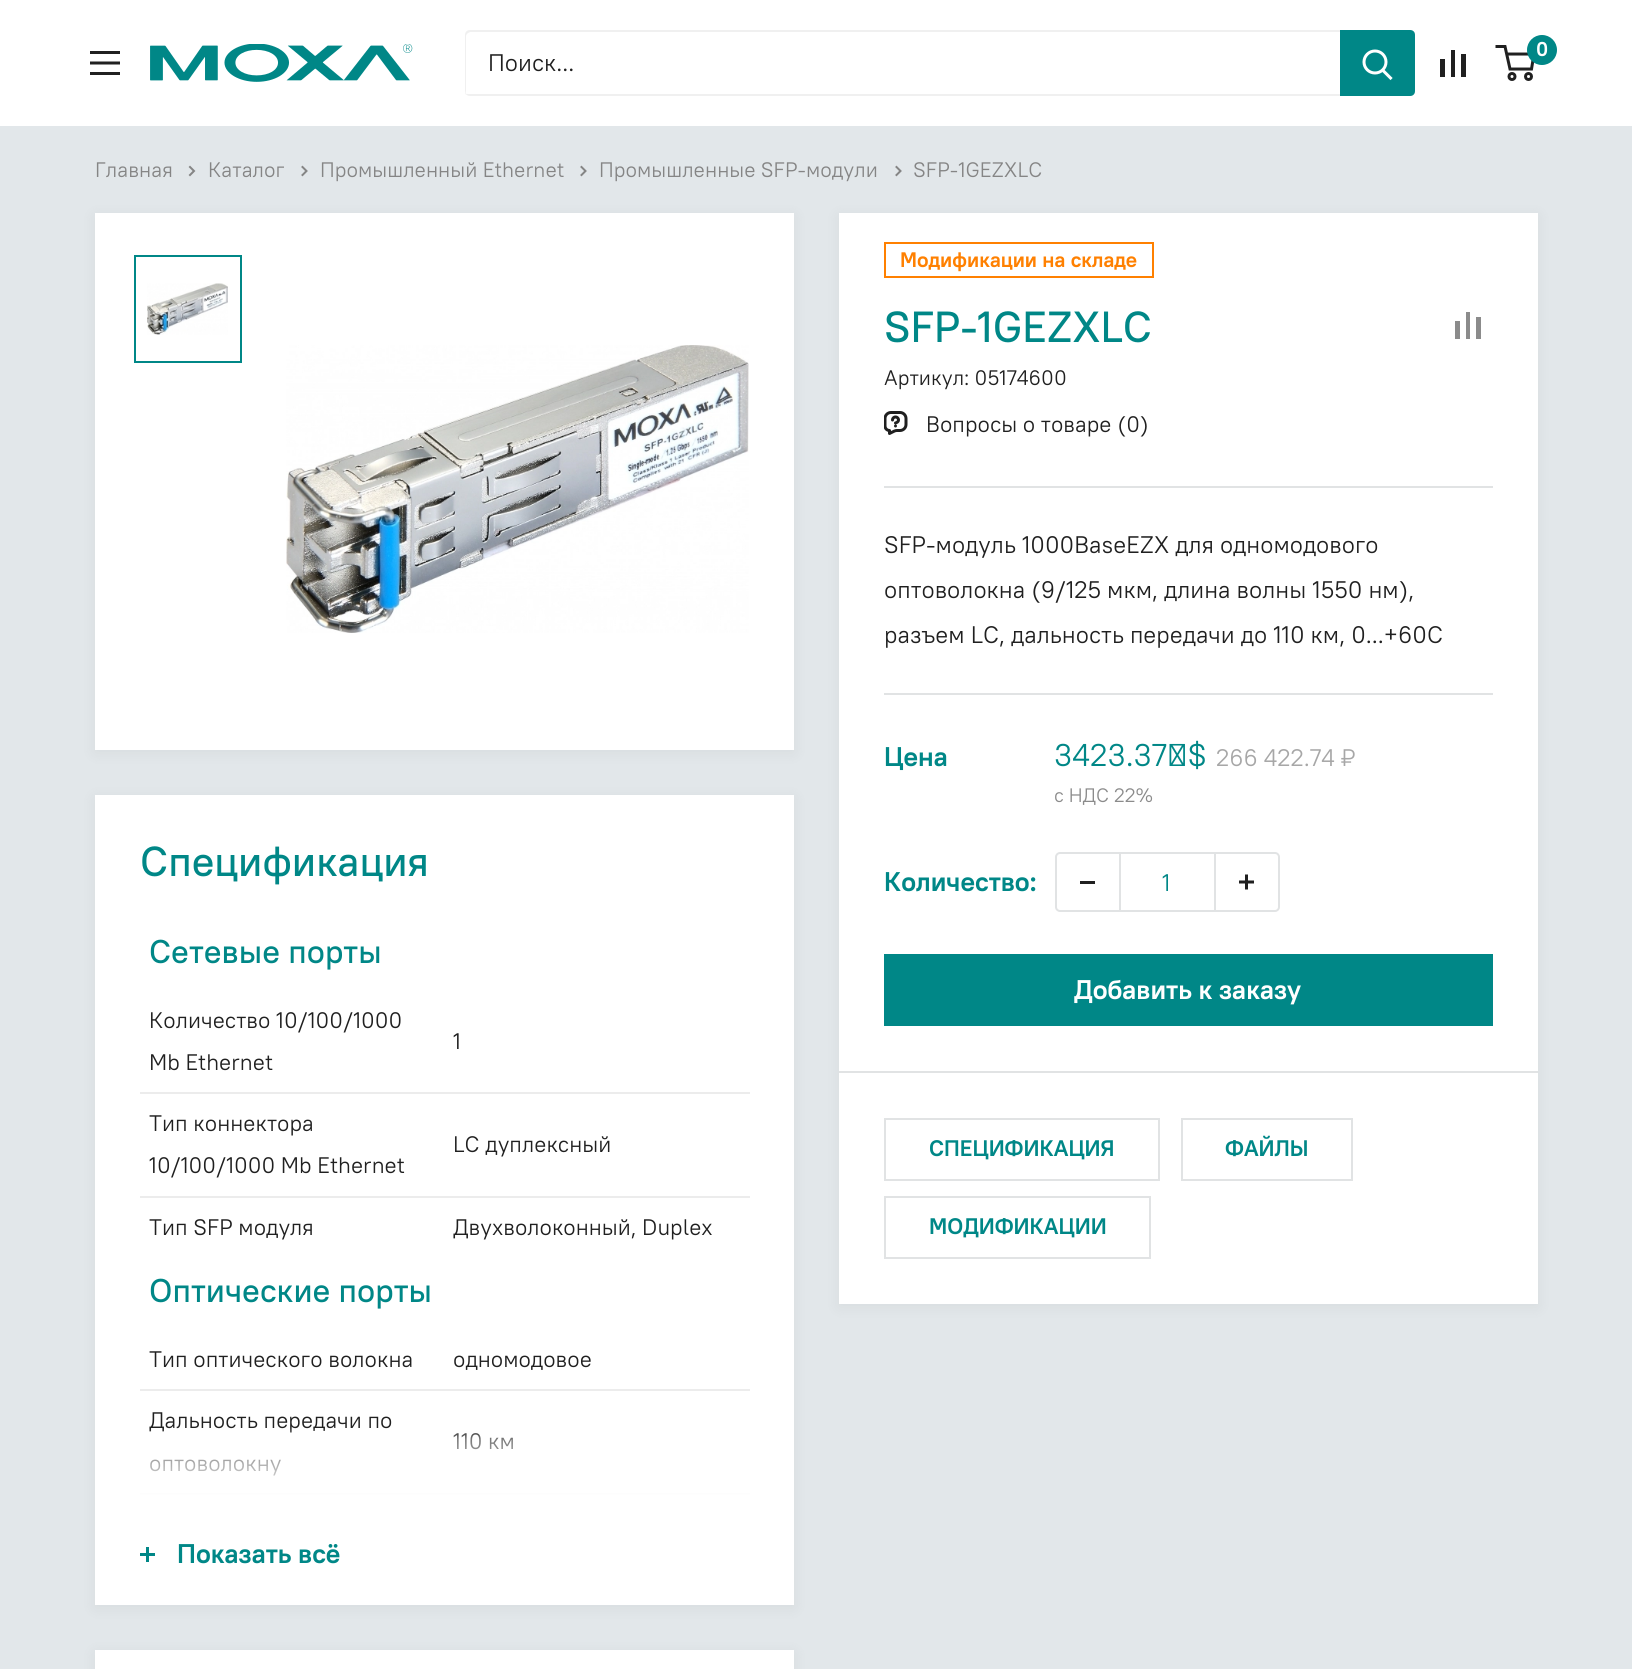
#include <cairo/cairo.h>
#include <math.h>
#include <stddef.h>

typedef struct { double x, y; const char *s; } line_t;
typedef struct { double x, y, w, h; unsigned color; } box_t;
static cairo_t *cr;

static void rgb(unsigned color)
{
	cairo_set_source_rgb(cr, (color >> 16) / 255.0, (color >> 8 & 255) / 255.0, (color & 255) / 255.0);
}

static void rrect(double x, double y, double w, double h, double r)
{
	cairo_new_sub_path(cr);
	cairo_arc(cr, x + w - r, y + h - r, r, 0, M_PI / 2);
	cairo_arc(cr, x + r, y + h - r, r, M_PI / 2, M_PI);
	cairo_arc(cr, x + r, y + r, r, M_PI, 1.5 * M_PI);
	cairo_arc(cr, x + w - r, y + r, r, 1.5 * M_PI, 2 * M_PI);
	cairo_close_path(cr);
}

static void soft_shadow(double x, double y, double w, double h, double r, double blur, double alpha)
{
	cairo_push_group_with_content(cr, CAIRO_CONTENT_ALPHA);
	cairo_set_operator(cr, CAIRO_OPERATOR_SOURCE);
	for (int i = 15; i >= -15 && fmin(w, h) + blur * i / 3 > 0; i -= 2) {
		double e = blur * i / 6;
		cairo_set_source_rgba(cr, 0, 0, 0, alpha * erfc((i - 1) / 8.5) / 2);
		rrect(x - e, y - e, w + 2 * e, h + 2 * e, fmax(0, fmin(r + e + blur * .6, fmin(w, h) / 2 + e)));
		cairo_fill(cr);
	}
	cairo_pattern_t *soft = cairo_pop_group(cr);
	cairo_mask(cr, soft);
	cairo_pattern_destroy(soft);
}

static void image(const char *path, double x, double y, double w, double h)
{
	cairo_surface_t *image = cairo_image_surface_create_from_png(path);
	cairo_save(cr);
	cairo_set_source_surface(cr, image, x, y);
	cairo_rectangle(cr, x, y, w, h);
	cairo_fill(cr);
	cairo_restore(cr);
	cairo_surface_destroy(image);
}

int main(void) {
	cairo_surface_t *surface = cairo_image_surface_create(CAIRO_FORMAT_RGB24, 1632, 1669);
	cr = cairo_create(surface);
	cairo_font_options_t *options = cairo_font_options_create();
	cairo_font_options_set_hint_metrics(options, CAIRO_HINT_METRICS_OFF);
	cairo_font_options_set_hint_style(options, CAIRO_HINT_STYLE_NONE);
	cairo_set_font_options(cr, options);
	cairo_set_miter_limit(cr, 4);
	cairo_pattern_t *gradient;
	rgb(0xe2e7ea);
	cairo_paint(cr);
	rgb(0xffffff);
	cairo_rectangle(cr, 0, 0, 1632, 126);
	cairo_fill(cr);
	image("img/1.png", 90, 51, 30, 24);
	image("img/2.png", 150, 44, 263, 38);
	rgb(0xf0f0f0);
	cairo_new_path(cr);
	cairo_move_to(cr, 465, 93);
	cairo_curve_to(cr, 466, 95, 468, 96, 470, 96);
	cairo_line_to(cr, 1410, 96);
	cairo_curve_to(cr, 1413, 96, 1415, 94, 1415, 91);
	cairo_line_to(cr, 1415, 35);
	cairo_curve_to(cr, 1415, 33, 1414, 31, 1412, 31);
	cairo_line_to(cr, 1413, 33);
	cairo_line_to(cr, 1413, 90);
	cairo_curve_to(cr, 1413, 92, 1411, 94, 1408, 94);
	cairo_line_to(cr, 468, 94);
	cairo_curve_to(cr, 467, 94, 466, 94, 465, 93);
	cairo_close_path(cr);
	cairo_fill(cr);
	cairo_set_source_rgba(cr, 0.8, 0.8, 0.8, 0.3);
	cairo_new_path(cr);
	cairo_move_to(cr, 471, 32);
	cairo_line_to(cr, 1412, 32);
	cairo_line_to(cr, 1415, 33);
	cairo_curve_to(cr, 1414, 31, 1412, 30, 1410, 30);
	cairo_line_to(cr, 470, 30);
	cairo_curve_to(cr, 467, 30, 465, 32, 465, 35);
	cairo_line_to(cr, 465, 91);
	cairo_curve_to(cr, 465, 92, 466, 94, 466, 95);
	cairo_line_to(cr, 466, 93);
	cairo_line_to(cr, 466, 36);
	cairo_curve_to(cr, 466, 34, 469, 32, 471, 32);
	cairo_close_path(cr);
	cairo_fill(cr);
	rgb(0x008787);
	cairo_new_path(cr);
	cairo_move_to(cr, 1340, 30);
	cairo_line_to(cr, 1410, 30);
	cairo_curve_to(cr, 1413, 30, 1415, 32, 1415, 35);
	cairo_line_to(cr, 1415, 91);
	cairo_curve_to(cr, 1415, 94, 1413, 96, 1410, 96);
	cairo_line_to(cr, 1340, 96);
	cairo_close_path(cr);
	cairo_fill(cr);
	cairo_new_path(cr);
	cairo_move_to(cr, 1390.5, 78);
	cairo_line_to(cr, 1383, 70.5);
	rgb(0xffffff);
	cairo_set_line_width(cr, 3);
	cairo_set_line_cap(cr, CAIRO_LINE_CAP_SQUARE);
	cairo_stroke(cr);
	cairo_arc(cr, 1375, 62, 11, 0, 2 * M_PI);
	cairo_set_line_cap(cr, CAIRO_LINE_CAP_BUTT);
	cairo_stroke(cr);
	{
		static const box_t items[] = {
			{1440, 59, 5, 18, 0x202020},
			{1451, 50, 4, 27, 0x202020},
			{1461, 54, 5, 23, 0x202020},
		};
		for (size_t i = 0; i < sizeof items / sizeof *items; i++) {
			rgb(items[i].color);
			cairo_rectangle(cr, items[i].x, items[i].y, items[i].w, items[i].h);
			cairo_fill(cr);
		}
	}
	cairo_arc(cr, 1512, 76.5, 3, 0, 2 * M_PI);
	cairo_stroke(cr);
	cairo_arc(cr, 1528.5, 76.5, 3, 0, 2 * M_PI);
	cairo_stroke(cr);
	cairo_new_path(cr);
	cairo_move_to(cr, 1506.5, 54);
	cairo_line_to(cr, 1534, 54);
	cairo_line_to(cr, 1531.5, 69);
	cairo_line_to(cr, 1510, 69);
	cairo_line_to(cr, 1505, 46.5);
	cairo_line_to(cr, 1495.5, 46.5);
	cairo_stroke(cr);
	rgb(0x008787);
	cairo_arc(cr, 1542, 50, 15, 0, 2 * M_PI);
	cairo_fill(cr);
	cairo_new_path(cr);
	cairo_move_to(cr, 190, 167);
	cairo_line_to(cr, 194, 171);
	cairo_line_to(cr, 190, 175);
	rgb(0x858585);
	cairo_set_line_width(cr, 2);
	cairo_set_line_cap(cr, CAIRO_LINE_CAP_SQUARE);
	cairo_stroke(cr);
	cairo_new_path(cr);
	cairo_move_to(cr, 302.5, 167);
	cairo_line_to(cr, 306.5, 171);
	cairo_line_to(cr, 302.5, 175);
	cairo_stroke(cr);
	cairo_new_path(cr);
	cairo_move_to(cr, 581.5, 167);
	cairo_line_to(cr, 585.5, 171);
	cairo_line_to(cr, 581.5, 175);
	cairo_stroke(cr);
	cairo_new_path(cr);
	cairo_move_to(cr, 896.5, 167);
	cairo_line_to(cr, 900.5, 171);
	cairo_line_to(cr, 896.5, 175);
	cairo_stroke(cr);
	rgb(0x000000);
	soft_shadow(95, 216, 699, 537, 0, 7.5, 0.05);
	rgb(0xffffff);
	cairo_rectangle(cr, 95, 213, 699, 537);
	cairo_fill(cr);
	cairo_rectangle(cr, 135, 256, 106, 106);
	rgb(0x008787);
	cairo_set_line_cap(cr, CAIRO_LINE_CAP_BUTT);
	cairo_stroke(cr);
	image("img/3.png", 147, 283, 81, 52);
	image("img/4.png", 286, 345, 463, 288);
	rgb(0x000000);
	soft_shadow(839, 216, 699, 1091, 0, 7.5, 0.05);
	rgb(0xffffff);
	cairo_rectangle(cr, 839, 213, 699, 1091);
	cairo_fill(cr);
	cairo_rectangle(cr, 885, 243, 268, 34);
	rgb(0xff8000);
	cairo_stroke(cr);
	{
		static const box_t items[] = {
			{1455, 321, 5, 18, 0x8b8b8b},
			{1466, 312, 4, 27, 0x8b8b8b},
			{1476, 317, 5, 22, 0x8b8b8b},
		};
		for (size_t i = 0; i < sizeof items / sizeof *items; i++) {
			rgb(items[i].color);
			cairo_rectangle(cr, items[i].x, items[i].y, items[i].w, items[i].h);
			cairo_fill(cr);
		}
	}
	image("img/5.png", 884, 411, 24, 24);
	rgb(0xe1e3e4);
	cairo_rectangle(cr, 884, 486, 609, 2);
	cairo_fill(cr);
	cairo_rectangle(cr, 884, 693, 609, 2);
	cairo_fill(cr);
	rrect(1056, 853, 223, 58, 4);
	cairo_stroke(cr);
	{
		static const box_t items[] = {
			{1080, 881, 15, 3, 0x202020},
			{1214, 854, 2, 57, 0xe1e3e4},
			{1119, 854, 2, 57, 0xe1e3e4},
		};
		for (size_t i = 0; i < sizeof items / sizeof *items; i++) {
			rgb(items[i].color);
			cairo_rectangle(cr, items[i].x, items[i].y, items[i].w, items[i].h);
			cairo_fill(cr);
		}
	}
	image("img/6.png", 1239, 874, 15, 16);
	rgb(0x008787);
	cairo_rectangle(cr, 884, 954, 609, 72);
	cairo_fill(cr);
	rgb(0xe1e3e4);
	cairo_rectangle(cr, 839, 1071, 699, 2);
	cairo_fill(cr);
	cairo_rectangle(cr, 885, 1119, 274, 61);
	cairo_stroke(cr);
	cairo_rectangle(cr, 1182, 1119, 170, 61);
	cairo_stroke(cr);
	cairo_rectangle(cr, 885, 1197, 265, 61);
	cairo_stroke(cr);
	rgb(0x000000);
	soft_shadow(95, 798, 699, 810, 0, 7.5, 0.05);
	{
		static const box_t items[] = {
			{95, 795, 699, 707, 0xffffff},
			{140, 1092, 610, 2, 0xececec},
			{140, 1196, 610, 2, 0xececec},
			{140, 1389, 610, 2, 0xececec},
			{140, 1493, 610, 2, 0xececec},
			{95, 1503, 699, 102, 0xffffff},
			{146, 1547, 3, 15, 0x008787},
			{140, 1553, 15, 3, 0x008787},
		};
		for (size_t i = 0; i < sizeof items / sizeof *items; i++) {
			rgb(items[i].color);
			cairo_rectangle(cr, items[i].x, items[i].y, items[i].w, items[i].h);
			cairo_fill(cr);
		}
	}
	rgb(0x000000);
	soft_shadow(95, 1653, 699, 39, 0, 7.5, 0.05);
	rgb(0xffffff);
	cairo_rectangle(cr, 95, 1650, 699, 19);
	cairo_fill(cr);
	cairo_select_font_face(cr, "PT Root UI", CAIRO_FONT_SLANT_NORMAL, CAIRO_FONT_WEIGHT_NORMAL);
	cairo_set_font_size(cr, 24);
	rgb(0x202020);
	cairo_move_to(cr, 488, 71);
	cairo_show_text(cr, "Поиск...");
	cairo_select_font_face(cr, "PT Root UI", CAIRO_FONT_SLANT_NORMAL, CAIRO_FONT_WEIGHT_BOLD);
	cairo_set_font_size(cr, 20);
	rgb(0xffffff);
	cairo_move_to(cr, 1536, 56);
	cairo_show_text(cr, "0");
	cairo_select_font_face(cr, "PT Root UI", CAIRO_FONT_SLANT_NORMAL, CAIRO_FONT_WEIGHT_NORMAL);
	cairo_set_font_size(cr, 21);
	rgb(0x858585);
	{
		static const line_t items[] = {
			{95, 177, "Главная"},
			{208, 177, "Каталог"},
			{320, 177, "Промышленный Ethernet"},
			{599, 177, "Промышленные SFP-модули"},
			{913, 177, "SFP-1GEZXLC"},
		};
		for (size_t i = 0; i < sizeof items / sizeof *items; i++) {
			cairo_move_to(cr, items[i].x, items[i].y);
			cairo_show_text(cr, items[i].s);
		}
	}
	cairo_select_font_face(cr, "PT Root UI", CAIRO_FONT_SLANT_NORMAL, CAIRO_FONT_WEIGHT_BOLD);
	rgb(0xff8000);
	cairo_move_to(cr, 900, 267);
	cairo_show_text(cr, "Модификации на складе");
	cairo_select_font_face(cr, "PT Root UI Medium", CAIRO_FONT_SLANT_NORMAL, CAIRO_FONT_WEIGHT_NORMAL);
	cairo_set_font_size(cr, 43.5);
	rgb(0x008787);
	cairo_move_to(cr, 884, 342);
	cairo_show_text(cr, "SFP-1GEZXLC");
	cairo_select_font_face(cr, "PT Root UI", CAIRO_FONT_SLANT_NORMAL, CAIRO_FONT_WEIGHT_NORMAL);
	cairo_set_font_size(cr, 21);
	rgb(0x202020);
	cairo_move_to(cr, 884, 385);
	cairo_show_text(cr, "Артикул: 05174600");
	cairo_set_font_size(cr, 22.5);
	cairo_move_to(cr, 926, 432);
	cairo_show_text(cr, "Вопросы о товаре (0)");
	cairo_set_font_size(cr, 24);
	{
		static const line_t items[] = {
			{884, 553, "SFP-модуль 1000BaseEZX для одномодового"},
			{884, 598, "оптоволокна (9/125 мкм, длина волны 1550 нм),"},
			{884, 643, "разъем LC, дальность передачи до 110 км, 0...+60C"},
		};
		for (size_t i = 0; i < sizeof items / sizeof *items; i++) {
			cairo_move_to(cr, items[i].x, items[i].y);
			cairo_show_text(cr, items[i].s);
		}
	}
	cairo_select_font_face(cr, "PT Root UI", CAIRO_FONT_SLANT_NORMAL, CAIRO_FONT_WEIGHT_BOLD);
	cairo_set_font_size(cr, 27);
	rgb(0x008787);
	cairo_move_to(cr, 884, 766);
	cairo_show_text(cr, "Цена");
	cairo_select_font_face(cr, "PT Root UI", CAIRO_FONT_SLANT_NORMAL, CAIRO_FONT_WEIGHT_NORMAL);
	cairo_set_font_size(cr, 31.5);
	cairo_move_to(cr, 1054, 766);
	cairo_show_text(cr, "3423.37 $");
	cairo_set_font_size(cr, 24);
	rgb(0xa7a7a7);
	cairo_move_to(cr, 1216, 766);
	cairo_show_text(cr, "266 422.74 ₽");
	cairo_set_font_size(cr, 19.5);
	rgb(0x8b8b8b);
	cairo_move_to(cr, 1054, 802);
	cairo_show_text(cr, "с НДС 22%");
	cairo_select_font_face(cr, "PT Root UI", CAIRO_FONT_SLANT_NORMAL, CAIRO_FONT_WEIGHT_BOLD);
	cairo_set_font_size(cr, 27);
	rgb(0x008787);
	cairo_move_to(cr, 884, 891);
	cairo_show_text(cr, "Количество:");
	cairo_select_font_face(cr, "PT Root UI", CAIRO_FONT_SLANT_NORMAL, CAIRO_FONT_WEIGHT_NORMAL);
	cairo_set_font_size(cr, 24);
	cairo_move_to(cr, 1162, 891);
	cairo_show_text(cr, "1");
	cairo_select_font_face(cr, "PT Root UI", CAIRO_FONT_SLANT_NORMAL, CAIRO_FONT_WEIGHT_BOLD);
	cairo_set_font_size(cr, 27);
	rgb(0xffffff);
	cairo_move_to(cr, 1074, 999);
	cairo_show_text(cr, "Добавить к заказу");
	cairo_set_font_size(cr, 22.5);
	rgb(0x008787);
	{
		static const line_t items[] = {
			{929, 1156, "СПЕЦИФИКАЦИЯ"},
			{1225, 1156, "ФАЙЛЫ"},
			{929, 1234, "МОДИФИКАЦИИ"},
		};
		for (size_t i = 0; i < sizeof items / sizeof *items; i++) {
			cairo_move_to(cr, items[i].x, items[i].y);
			cairo_show_text(cr, items[i].s);
		}
	}
	cairo_select_font_face(cr, "PT Root UI Medium", CAIRO_FONT_SLANT_NORMAL, CAIRO_FONT_WEIGHT_NORMAL);
	cairo_set_font_size(cr, 42);
	cairo_move_to(cr, 140, 876);
	cairo_show_text(cr, "Спецификация");
	cairo_set_font_size(cr, 33);
	cairo_move_to(cr, 149, 963);
	cairo_show_text(cr, "Сетевые порты");
	cairo_select_font_face(cr, "PT Root UI", CAIRO_FONT_SLANT_NORMAL, CAIRO_FONT_WEIGHT_NORMAL);
	cairo_set_font_size(cr, 22.5);
	rgb(0x202020);
	{
		static const line_t items[] = {
			{149, 1028, "Количество 10/100/1000"},
			{149, 1070, "Mb Ethernet"},
			{453, 1049, "1"},
			{149, 1131, "Тип коннектора"},
			{149, 1173, "10/100/1000 Mb Ethernet"},
			{453, 1152, "LC дуплексный"},
			{149, 1235, "Тип SFP модуля"},
			{453, 1235, "Двухволоконный, Duplex"},
		};
		for (size_t i = 0; i < sizeof items / sizeof *items; i++) {
			cairo_move_to(cr, items[i].x, items[i].y);
			cairo_show_text(cr, items[i].s);
		}
	}
	cairo_select_font_face(cr, "PT Root UI Medium", CAIRO_FONT_SLANT_NORMAL, CAIRO_FONT_WEIGHT_NORMAL);
	cairo_set_font_size(cr, 33);
	rgb(0x008787);
	cairo_move_to(cr, 149, 1302);
	cairo_show_text(cr, "Оптические порты");
	cairo_select_font_face(cr, "PT Root UI", CAIRO_FONT_SLANT_NORMAL, CAIRO_FONT_WEIGHT_NORMAL);
	cairo_set_font_size(cr, 22.5);
	rgb(0x202020);
	{
		static const line_t items[] = {
			{149, 1367, "Тип оптического волокна"},
			{453, 1367, "одномодовое"},
			{149, 1428, "Дальность передачи по"},
			{149, 1471, "оптоволокну"},
			{453, 1449, "110 км"},
		};
		for (size_t i = 0; i < sizeof items / sizeof *items; i++) {
			cairo_move_to(cr, items[i].x, items[i].y);
			cairo_show_text(cr, items[i].s);
		}
	}
	gradient = cairo_pattern_create_linear(444, 1428, 444, 1503);
	cairo_pattern_add_color_stop_rgba(gradient, 0, 1, 1, 1, 0);
	cairo_pattern_add_color_stop_rgba(gradient, 0.15, 1, 1, 1, 0.4);
	cairo_pattern_add_color_stop_rgba(gradient, 1, 1, 1, 1, 1);
	cairo_set_source(cr, gradient);
	cairo_pattern_destroy(gradient);
	cairo_rectangle(cr, 95, 1429, 699, 74);
	cairo_fill(cr);
	cairo_select_font_face(cr, "PT Root UI", CAIRO_FONT_SLANT_NORMAL, CAIRO_FONT_WEIGHT_BOLD);
	cairo_set_font_size(cr, 27);
	rgb(0x008787);
	cairo_move_to(cr, 177, 1563);
	cairo_show_text(cr, "Показать всё");
	cairo_surface_write_to_png(surface, "page.png");
	cairo_font_options_destroy(options);
	cairo_destroy(cr);
	cairo_surface_destroy(surface);
	return 0;
}
